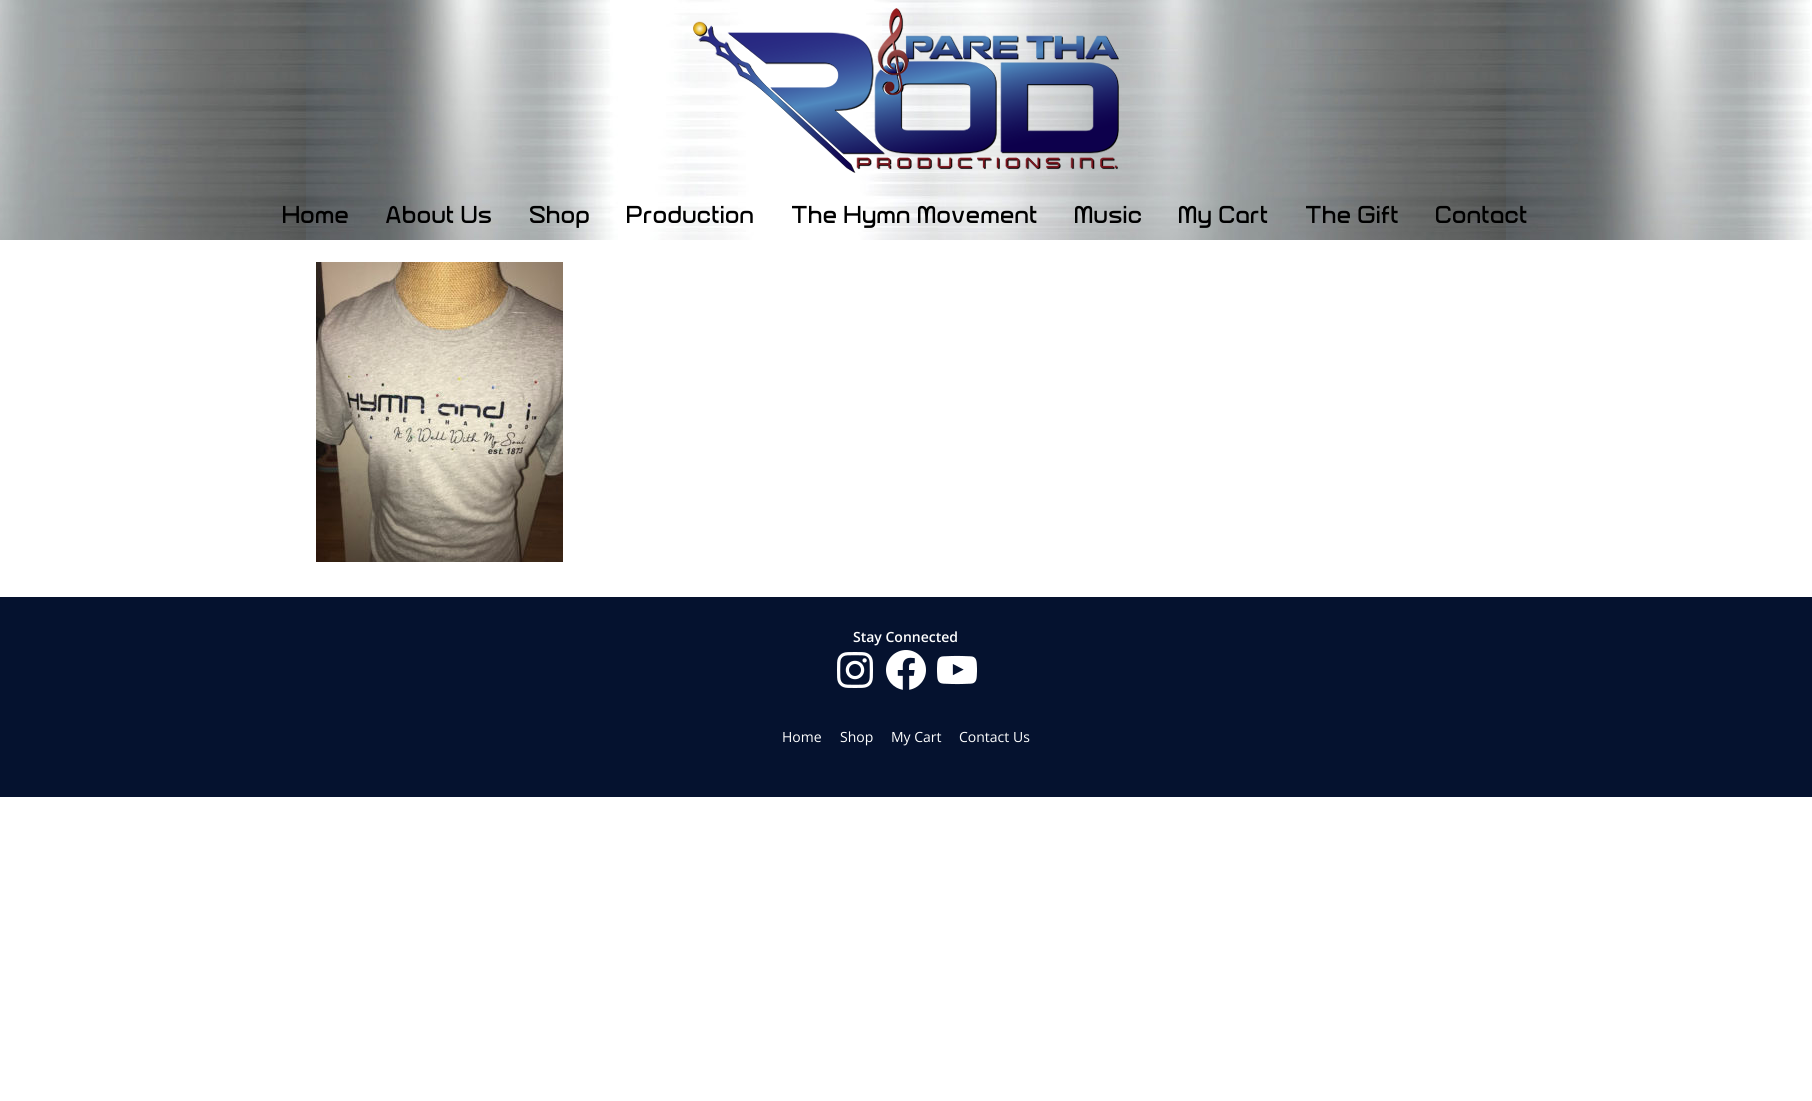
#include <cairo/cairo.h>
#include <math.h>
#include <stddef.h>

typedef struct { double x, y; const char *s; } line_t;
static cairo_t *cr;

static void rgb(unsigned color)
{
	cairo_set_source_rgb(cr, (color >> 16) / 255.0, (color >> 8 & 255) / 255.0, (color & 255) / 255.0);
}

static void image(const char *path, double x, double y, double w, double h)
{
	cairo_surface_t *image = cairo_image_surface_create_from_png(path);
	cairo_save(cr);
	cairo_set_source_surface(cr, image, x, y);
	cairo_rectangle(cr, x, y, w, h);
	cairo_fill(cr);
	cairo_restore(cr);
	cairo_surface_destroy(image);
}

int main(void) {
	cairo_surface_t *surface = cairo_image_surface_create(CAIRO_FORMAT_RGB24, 1812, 1101);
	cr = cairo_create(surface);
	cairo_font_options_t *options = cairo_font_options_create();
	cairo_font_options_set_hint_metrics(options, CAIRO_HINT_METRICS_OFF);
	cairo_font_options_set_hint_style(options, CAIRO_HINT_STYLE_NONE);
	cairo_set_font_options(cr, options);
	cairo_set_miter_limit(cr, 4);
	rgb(0xffffff);
	cairo_paint(cr);
	image("img/1.png", 0, 0, 1812, 240);
	image("img/2.png", 693, 8, 426, 165);
	image("img/3.png", 316, 262, 247, 300);
	rgb(0x05122f);
	cairo_rectangle(cr, 0, 597, 1812, 200);
	cairo_fill(cr);
	image("img/4.png", 837, 652, 36, 36);
	image("img/5.png", 886, 650, 40, 40);
	image("img/6.png", 937, 655, 40, 30);
	cairo_select_font_face(cr, "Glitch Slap", CAIRO_FONT_SLANT_NORMAL, CAIRO_FONT_WEIGHT_NORMAL);
	cairo_set_font_size(cr, 25);
	rgb(0x000000);
	{
		static const line_t items[] = {
			{283, 223, "Home"},
			{386, 223, "About Us"},
			{530, 223, "Shop"},
			{627, 223, "Production"},
			{792, 223, "The Hymn Movement"},
			{1075, 223, "Music"},
			{1179, 223, "My Cart"},
			{1306, 223, "The Gift"},
			{1436, 223, "Contact"},
		};
		for (size_t i = 0; i < sizeof items / sizeof *items; i++) {
			cairo_move_to(cr, items[i].x, items[i].y);
			cairo_show_text(cr, items[i].s);
		}
	}
	cairo_select_font_face(cr, "Open Sans SemiBold", CAIRO_FONT_SLANT_NORMAL, CAIRO_FONT_WEIGHT_NORMAL);
	cairo_set_font_size(cr, 14);
	rgb(0xffffff);
	cairo_move_to(cr, 853, 642);
	cairo_show_text(cr, "Stay Connected");
	cairo_select_font_face(cr, "Open Sans", CAIRO_FONT_SLANT_NORMAL, CAIRO_FONT_WEIGHT_NORMAL);
	{
		static const line_t items[] = {
			{782, 742, "Home"},
			{840, 742, "Shop"},
			{891, 742, "My Cart"},
			{959, 742, "Contact Us"},
		};
		for (size_t i = 0; i < sizeof items / sizeof *items; i++) {
			cairo_move_to(cr, items[i].x, items[i].y);
			cairo_show_text(cr, items[i].s);
		}
	}
	cairo_surface_write_to_png(surface, "page.png");
	cairo_font_options_destroy(options);
	cairo_destroy(cr);
	cairo_surface_destroy(surface);
	return 0;
}
